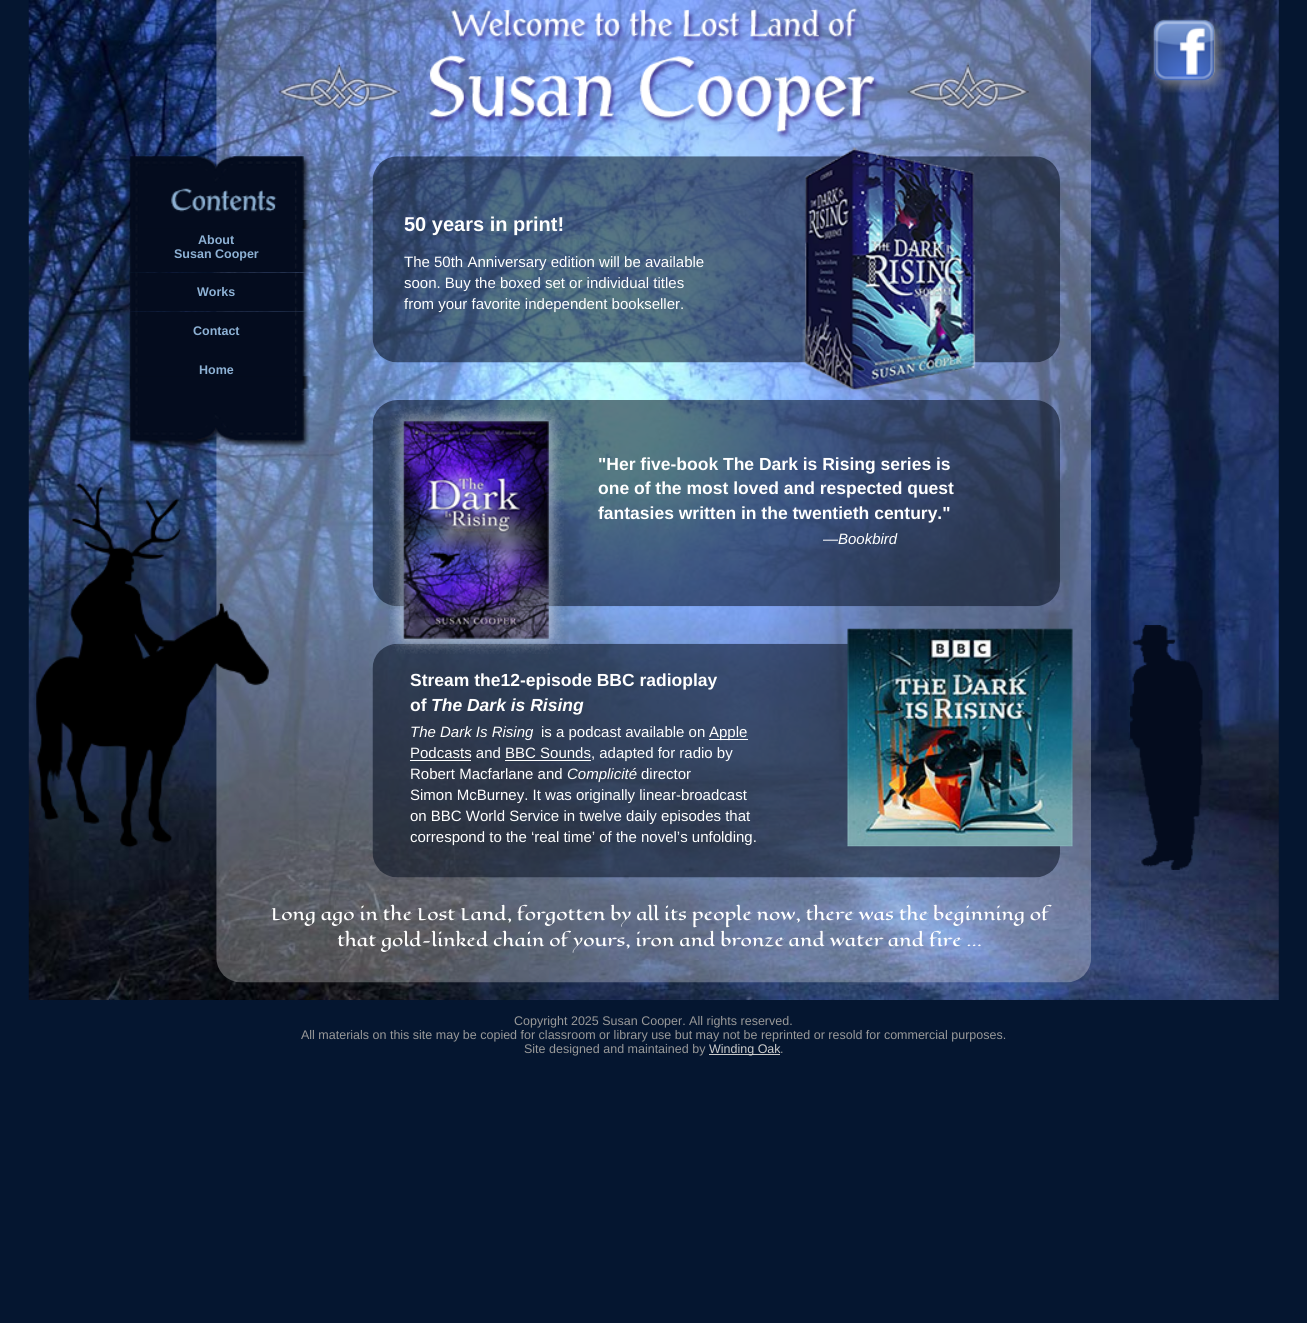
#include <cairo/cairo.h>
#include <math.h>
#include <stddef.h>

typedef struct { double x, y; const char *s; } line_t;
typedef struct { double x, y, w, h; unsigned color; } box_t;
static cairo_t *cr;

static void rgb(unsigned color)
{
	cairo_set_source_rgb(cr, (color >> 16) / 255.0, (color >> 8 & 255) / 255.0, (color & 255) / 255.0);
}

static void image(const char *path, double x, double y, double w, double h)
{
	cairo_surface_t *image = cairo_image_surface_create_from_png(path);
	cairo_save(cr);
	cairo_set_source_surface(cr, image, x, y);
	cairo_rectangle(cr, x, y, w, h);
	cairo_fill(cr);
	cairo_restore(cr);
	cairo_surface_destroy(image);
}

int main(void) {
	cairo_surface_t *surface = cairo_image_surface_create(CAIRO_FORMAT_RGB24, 1307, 1323);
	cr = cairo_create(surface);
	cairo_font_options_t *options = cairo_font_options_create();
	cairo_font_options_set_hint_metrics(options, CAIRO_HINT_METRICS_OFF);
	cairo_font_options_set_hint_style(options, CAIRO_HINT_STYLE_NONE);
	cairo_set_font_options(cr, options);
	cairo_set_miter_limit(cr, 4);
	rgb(0x051630);
	cairo_paint(cr);
	image("img/1.png", 28, 0, 1251, 1000);
	image("img/2.png", 1149, 16, 76, 77);
	image("img/9.png", 216, 0, 875, 983);
	image("img/4.png", 129, 220, 181, 53);
	image("img/3.png", 129, 156, 181, 73);
	image("img/5.png", 129, 272, 181, 40);
	image("img/6.png", 129, 311, 181, 39);
	image("img/7.png", 129, 350, 181, 39);
	image("img/8.png", 129, 376, 181, 72);
	image("img/10.png", 451, 8, 408, 34);
	image("img/11.png", 278, 62, 123, 49);
	image("img/12.png", 428, 55, 451, 84);
	image("img/13.png", 907, 62, 122, 49);
	image("img/14.png", 372, 156, 688, 207);
	image("img/15.png", 802, 147, 174, 244);
	image("img/16.png", 372, 400, 688, 207);
	image("img/18.png", 372, 643, 688, 235);
	image("img/17.png", 389, 406, 175, 248);
	{
		static const box_t items[] = {
			{709, 739, 39, 1, 0xffffff},
			{410, 760, 61, 1, 0xffffff},
			{505, 760, 86, 1, 0xffffff},
		};
		for (size_t i = 0; i < sizeof items / sizeof *items; i++) {
			rgb(items[i].color);
			cairo_rectangle(cr, items[i].x, items[i].y, items[i].w, items[i].h);
			cairo_fill(cr);
		}
	}
	image("img/19.png", 847, 628, 226, 219);
	image("img/20.png", 36, 483, 233, 365);
	image("img/21.png", 1130, 625, 73, 245);
	rgb(0xcccccc);
	cairo_rectangle(cr, 709, 1054, 71, 1);
	cairo_fill(cr);
	cairo_select_font_face(cr, "Liberation Sans", CAIRO_FONT_SLANT_NORMAL, CAIRO_FONT_WEIGHT_BOLD);
	cairo_set_font_size(cr, 12.5);
	rgb(0x8db1d4);
	{
		static const line_t items[] = {
			{198, 244, "About"},
			{174, 258, "Susan Cooper"},
			{197, 296, "Works"},
			{193, 335, "Contact"},
			{199, 374, "Home"},
		};
		for (size_t i = 0; i < sizeof items / sizeof *items; i++) {
			cairo_move_to(cr, items[i].x, items[i].y);
			cairo_show_text(cr, items[i].s);
		}
	}
	cairo_set_font_size(cr, 20);
	rgb(0xffffff);
	cairo_move_to(cr, 404, 231);
	cairo_show_text(cr, "50 years in print!");
	cairo_select_font_face(cr, "Liberation Sans", CAIRO_FONT_SLANT_NORMAL, CAIRO_FONT_WEIGHT_NORMAL);
	cairo_set_font_size(cr, 15);
	{
		static const line_t items[] = {
			{404, 267, "The 50th Anniversary edition will be available"},
			{404, 288, "soon. Buy the boxed set or individual titles"},
			{404, 309, "from your favorite independent bookseller."},
		};
		for (size_t i = 0; i < sizeof items / sizeof *items; i++) {
			cairo_move_to(cr, items[i].x, items[i].y);
			cairo_show_text(cr, items[i].s);
		}
	}
	cairo_select_font_face(cr, "Liberation Sans", CAIRO_FONT_SLANT_NORMAL, CAIRO_FONT_WEIGHT_BOLD);
	cairo_set_font_size(cr, 17.5);
	{
		static const line_t items[] = {
			{598, 470, "\"Her five-book The Dark is Rising series is"},
			{598, 494, "one of the most loved and respected quest"},
			{598, 519, "fantasies written in the twentieth century.\""},
		};
		for (size_t i = 0; i < sizeof items / sizeof *items; i++) {
			cairo_move_to(cr, items[i].x, items[i].y);
			cairo_show_text(cr, items[i].s);
		}
	}
	cairo_select_font_face(cr, "Liberation Sans", CAIRO_FONT_SLANT_NORMAL, CAIRO_FONT_WEIGHT_NORMAL);
	cairo_set_font_size(cr, 15);
	cairo_move_to(cr, 823, 544);
	cairo_show_text(cr, "—");
	cairo_select_font_face(cr, "Liberation Sans", CAIRO_FONT_SLANT_ITALIC, CAIRO_FONT_WEIGHT_NORMAL);
	cairo_move_to(cr, 838, 544);
	cairo_show_text(cr, "Bookbird");
	cairo_select_font_face(cr, "Liberation Sans", CAIRO_FONT_SLANT_NORMAL, CAIRO_FONT_WEIGHT_BOLD);
	cairo_set_font_size(cr, 17.5);
	cairo_move_to(cr, 410, 686);
	cairo_show_text(cr, "Stream the12-episode BBC radioplay");
	cairo_move_to(cr, 410, 711);
	cairo_show_text(cr, "of");
	cairo_select_font_face(cr, "Liberation Sans", CAIRO_FONT_SLANT_ITALIC, CAIRO_FONT_WEIGHT_BOLD);
	cairo_move_to(cr, 431, 711);
	cairo_show_text(cr, "The Dark is Rising");
	cairo_select_font_face(cr, "Liberation Sans", CAIRO_FONT_SLANT_ITALIC, CAIRO_FONT_WEIGHT_NORMAL);
	cairo_set_font_size(cr, 15);
	cairo_move_to(cr, 410, 737);
	cairo_show_text(cr, "The Dark Is Rising");
	cairo_select_font_face(cr, "Liberation Sans", CAIRO_FONT_SLANT_NORMAL, CAIRO_FONT_WEIGHT_NORMAL);
	{
		static const line_t items[] = {
			{541, 737, "is a podcast available on"},
			{709, 737, "Apple"},
			{410, 758, "Podcasts and BBC Sounds, adapted for radio by"},
			{410, 779, "Robert Macfarlane and"},
		};
		for (size_t i = 0; i < sizeof items / sizeof *items; i++) {
			cairo_move_to(cr, items[i].x, items[i].y);
			cairo_show_text(cr, items[i].s);
		}
	}
	cairo_select_font_face(cr, "Liberation Sans", CAIRO_FONT_SLANT_ITALIC, CAIRO_FONT_WEIGHT_NORMAL);
	cairo_move_to(cr, 567, 779);
	cairo_show_text(cr, "Complicité");
	cairo_select_font_face(cr, "Liberation Sans", CAIRO_FONT_SLANT_NORMAL, CAIRO_FONT_WEIGHT_NORMAL);
	{
		static const line_t items[] = {
			{641, 779, "director"},
			{410, 800, "Simon McBurney. It was originally linear-broadcast"},
			{410, 821, "on BBC World Service in twelve daily episodes that"},
			{410, 842, "correspond to the ‘real time’ of the novel’s unfolding."},
		};
		for (size_t i = 0; i < sizeof items / sizeof *items; i++) {
			cairo_move_to(cr, items[i].x, items[i].y);
			cairo_show_text(cr, items[i].s);
		}
	}
	cairo_select_font_face(cr, "Eagle Lake", CAIRO_FONT_SLANT_NORMAL, CAIRO_FONT_WEIGHT_NORMAL);
	cairo_set_font_size(cr, 16.25);
	cairo_move_to(cr, 271, 920);
	cairo_show_text(cr, "Long ago in the Lost Land, forgotten by all its people now, there was the beginning of");
	cairo_move_to(cr, 337, 946);
	cairo_show_text(cr, "that gold-linked chain of yours, iron and bronze and water and fire …");
	cairo_select_font_face(cr, "Liberation Sans", CAIRO_FONT_SLANT_NORMAL, CAIRO_FONT_WEIGHT_NORMAL);
	cairo_set_font_size(cr, 12.5);
	rgb(0x999999);
	{
		static const line_t items[] = {
			{514, 1025, "Copyright 2025 Susan Cooper. All rights reserved."},
			{301, 1039, "All materials on this site may be copied for classroom or library use but may not be reprinted or resold for commercial purposes."},
			{524, 1053, "Site designed and maintained by"},
		};
		for (size_t i = 0; i < sizeof items / sizeof *items; i++) {
			cairo_move_to(cr, items[i].x, items[i].y);
			cairo_show_text(cr, items[i].s);
		}
	}
	rgb(0xcccccc);
	cairo_move_to(cr, 709, 1053);
	cairo_show_text(cr, "Winding Oak");
	rgb(0x999999);
	cairo_move_to(cr, 780, 1053);
	cairo_show_text(cr, ".");
	cairo_surface_write_to_png(surface, "page.png");
	cairo_font_options_destroy(options);
	cairo_destroy(cr);
	cairo_surface_destroy(surface);
	return 0;
}
